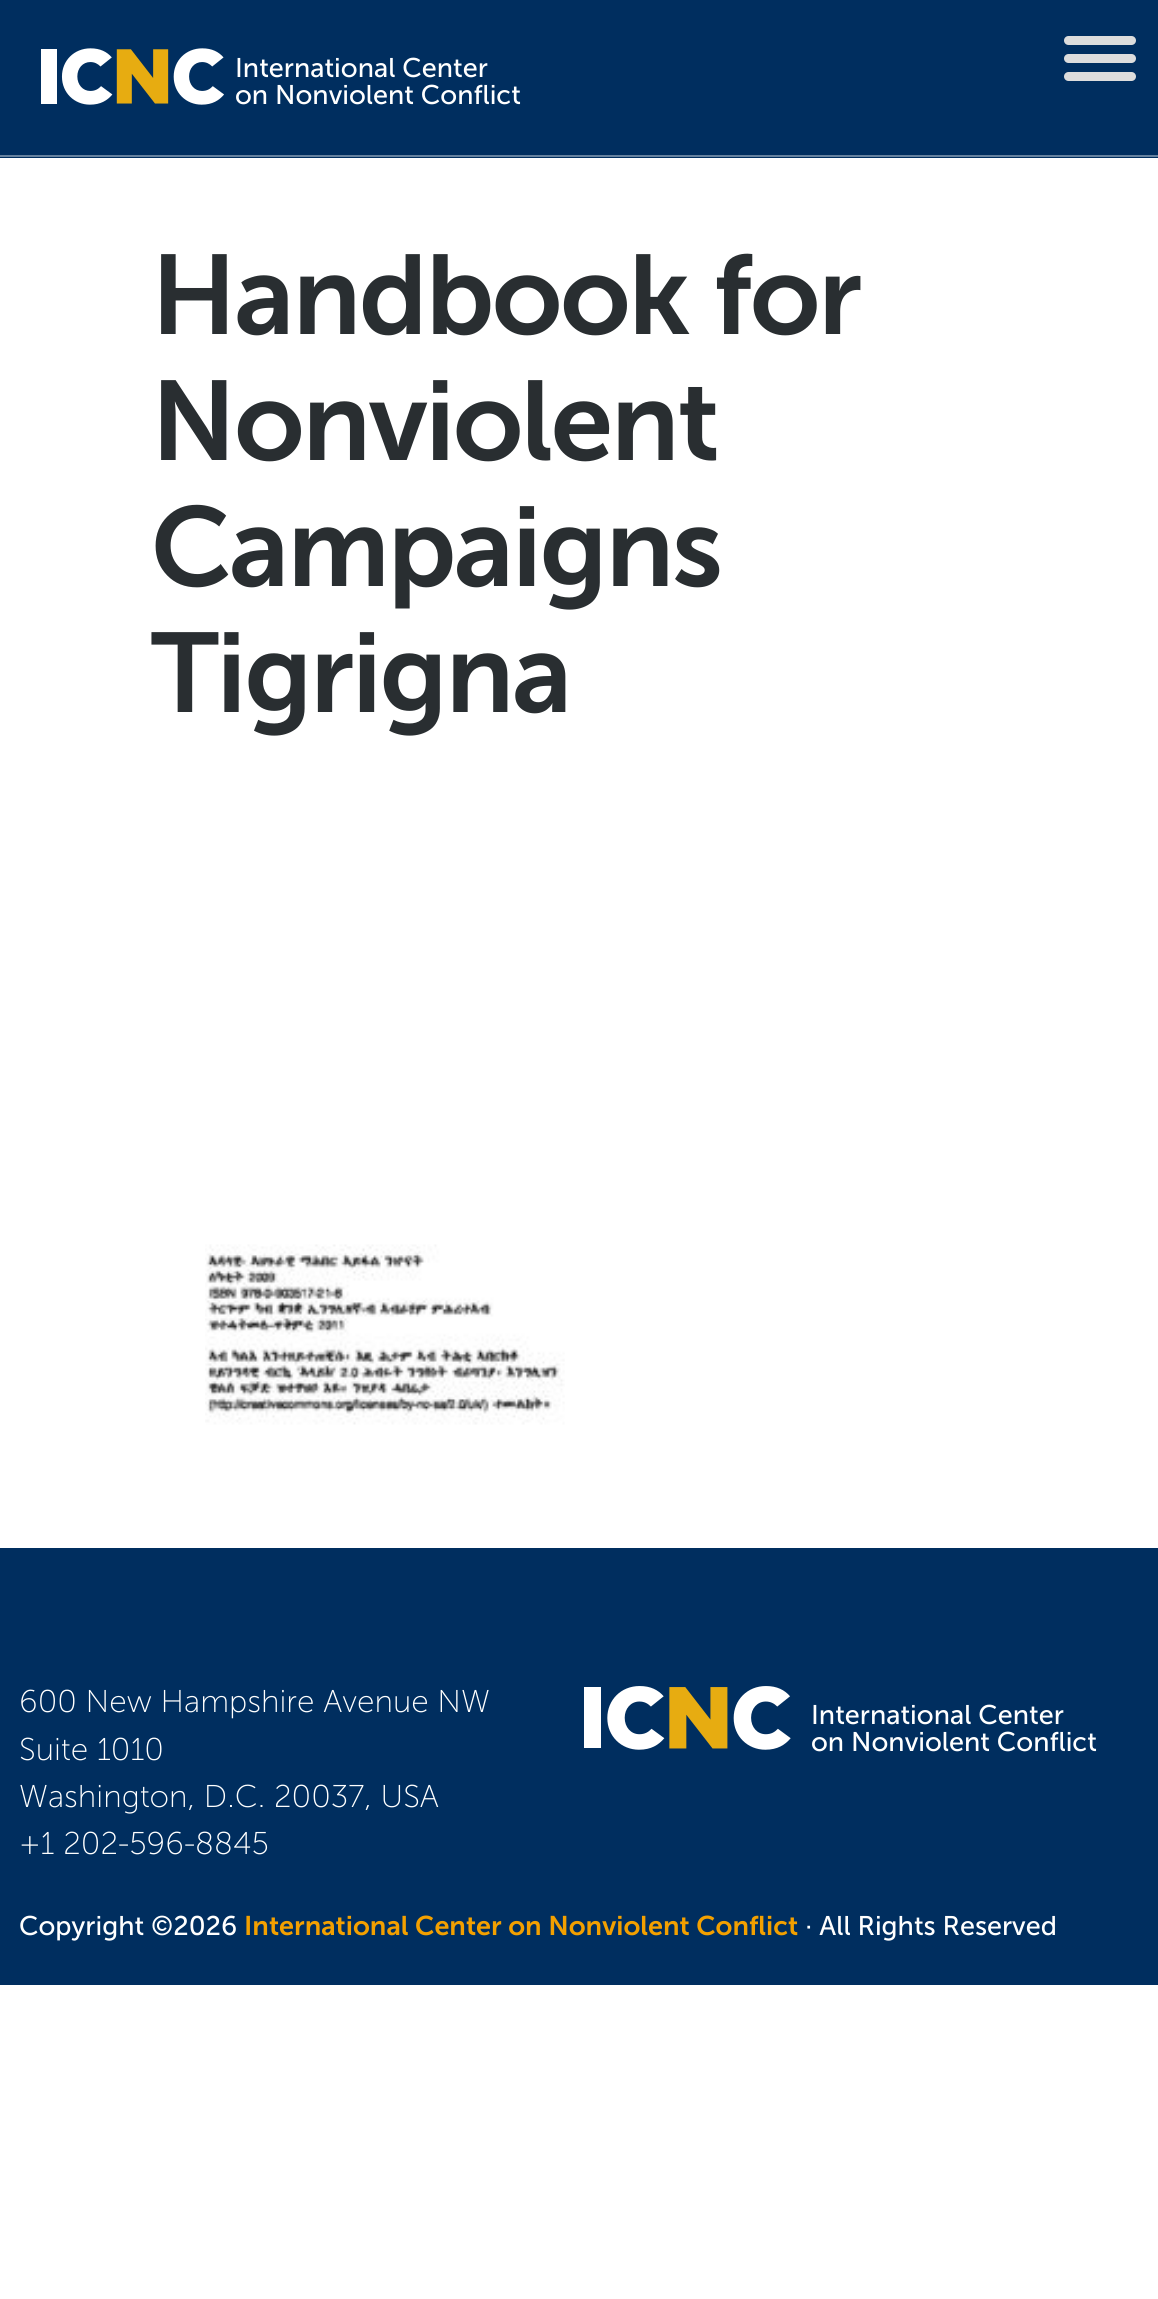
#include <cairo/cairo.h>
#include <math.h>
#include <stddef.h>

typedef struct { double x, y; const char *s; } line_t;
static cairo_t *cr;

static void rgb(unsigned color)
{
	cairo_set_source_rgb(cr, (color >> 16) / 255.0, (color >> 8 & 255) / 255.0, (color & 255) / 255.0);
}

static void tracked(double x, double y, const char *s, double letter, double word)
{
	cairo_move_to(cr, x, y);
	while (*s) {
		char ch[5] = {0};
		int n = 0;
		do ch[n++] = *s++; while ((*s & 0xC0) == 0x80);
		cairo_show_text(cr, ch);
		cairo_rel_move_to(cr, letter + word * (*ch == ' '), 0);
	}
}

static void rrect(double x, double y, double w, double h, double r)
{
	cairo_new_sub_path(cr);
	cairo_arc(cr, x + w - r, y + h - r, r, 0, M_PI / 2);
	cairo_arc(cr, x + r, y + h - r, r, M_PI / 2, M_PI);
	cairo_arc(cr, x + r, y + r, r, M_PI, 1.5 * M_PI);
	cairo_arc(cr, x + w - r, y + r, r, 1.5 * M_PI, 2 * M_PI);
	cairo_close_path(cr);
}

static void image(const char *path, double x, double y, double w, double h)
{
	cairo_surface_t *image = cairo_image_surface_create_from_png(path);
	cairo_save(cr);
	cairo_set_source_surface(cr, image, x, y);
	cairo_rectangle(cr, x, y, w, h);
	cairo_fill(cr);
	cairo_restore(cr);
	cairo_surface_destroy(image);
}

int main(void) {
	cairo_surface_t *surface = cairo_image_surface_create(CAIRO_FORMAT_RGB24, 1158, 2299);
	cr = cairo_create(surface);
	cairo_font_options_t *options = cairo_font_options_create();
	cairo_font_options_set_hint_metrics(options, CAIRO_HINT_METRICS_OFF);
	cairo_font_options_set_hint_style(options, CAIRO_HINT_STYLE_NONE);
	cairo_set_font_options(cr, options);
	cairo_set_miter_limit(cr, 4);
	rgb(0xffffff);
	cairo_paint(cr);
	rgb(0x002e5f);
	cairo_rectangle(cr, 0, 0, 1158, 158);
	cairo_fill(cr);
	rgb(0x66829f);
	cairo_rectangle(cr, 0, 155, 1158, 2);
	cairo_fill(cr);
	image("img/1.png", 41, 48, 183, 57);
	rgb(0xdddddd);
	rrect(1064, 36, 72, 9, 4.5);
	cairo_fill(cr);
	rrect(1064, 54, 72, 9, 4.5);
	cairo_fill(cr);
	rrect(1064, 72, 72, 9, 4.5);
	cairo_fill(cr);
	image("img/2.png", 205, 1244, 360, 181);
	rgb(0x002e5f);
	cairo_rectangle(cr, 0, 1548, 1158, 437);
	cairo_fill(cr);
	image("img/3.png", 584, 1686, 207, 64);
	cairo_select_font_face(cr, "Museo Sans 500", CAIRO_FONT_SLANT_NORMAL, CAIRO_FONT_WEIGHT_NORMAL);
	cairo_set_font_size(cr, 27);
	rgb(0xffffff);
	cairo_move_to(cr, 235, 77);
	cairo_show_text(cr, "International Center");
	cairo_move_to(cr, 235, 104);
	cairo_show_text(cr, "on Nonviolent Conflict");
	cairo_select_font_face(cr, "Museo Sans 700 SemiBold", CAIRO_FONT_SLANT_NORMAL, CAIRO_FONT_WEIGHT_NORMAL);
	cairo_set_font_size(cr, 112.5);
	rgb(0x292e31);
	{
		static const line_t items[] = {
			{151, 334, "Handbook for"},
			{151, 460, "Nonviolent"},
			{151, 586, "Campaigns"},
			{151, 712, "Tigrigna"},
		};
		for (size_t i = 0; i < sizeof items / sizeof *items; i++) {
			tracked(items[i].x, items[i].y, items[i].s, -2.25, 0);
		}
	}
	cairo_select_font_face(cr, "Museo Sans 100 Light", CAIRO_FONT_SLANT_NORMAL, CAIRO_FONT_WEIGHT_NORMAL);
	cairo_set_font_size(cr, 31.5);
	rgb(0xffffff);
	{
		static const line_t items[] = {
			{19, 1712, "600 New Hampshire Avenue NW"},
			{19, 1760, "Suite 1010"},
			{19, 1807, "Washington, D.C. 20037, USA"},
			{19, 1854, "+1 202-596-8845"},
		};
		for (size_t i = 0; i < sizeof items / sizeof *items; i++) {
			cairo_move_to(cr, items[i].x, items[i].y);
			cairo_show_text(cr, items[i].s);
		}
	}
	cairo_select_font_face(cr, "Museo Sans 500", CAIRO_FONT_SLANT_NORMAL, CAIRO_FONT_WEIGHT_NORMAL);
	cairo_set_font_size(cr, 27);
	{
		static const line_t items[] = {
			{811, 1724, "International Center"},
			{811, 1751, "on Nonviolent Conflict"},
			{19, 1935, "Copyright ©2026"},
		};
		for (size_t i = 0; i < sizeof items / sizeof *items; i++) {
			cairo_move_to(cr, items[i].x, items[i].y);
			cairo_show_text(cr, items[i].s);
		}
	}
	cairo_select_font_face(cr, "Museo Sans 700 SemiBold", CAIRO_FONT_SLANT_NORMAL, CAIRO_FONT_WEIGHT_NORMAL);
	rgb(0xf3a000);
	cairo_move_to(cr, 244, 1935);
	cairo_show_text(cr, "International Center on Nonviolent Conflict");
	cairo_select_font_face(cr, "Museo Sans 500", CAIRO_FONT_SLANT_NORMAL, CAIRO_FONT_WEIGHT_NORMAL);
	rgb(0xffffff);
	cairo_move_to(cr, 805, 1935);
	cairo_show_text(cr, "· All Rights Reserved");
	cairo_surface_write_to_png(surface, "page.png");
	cairo_font_options_destroy(options);
	cairo_destroy(cr);
	cairo_surface_destroy(surface);
	return 0;
}
